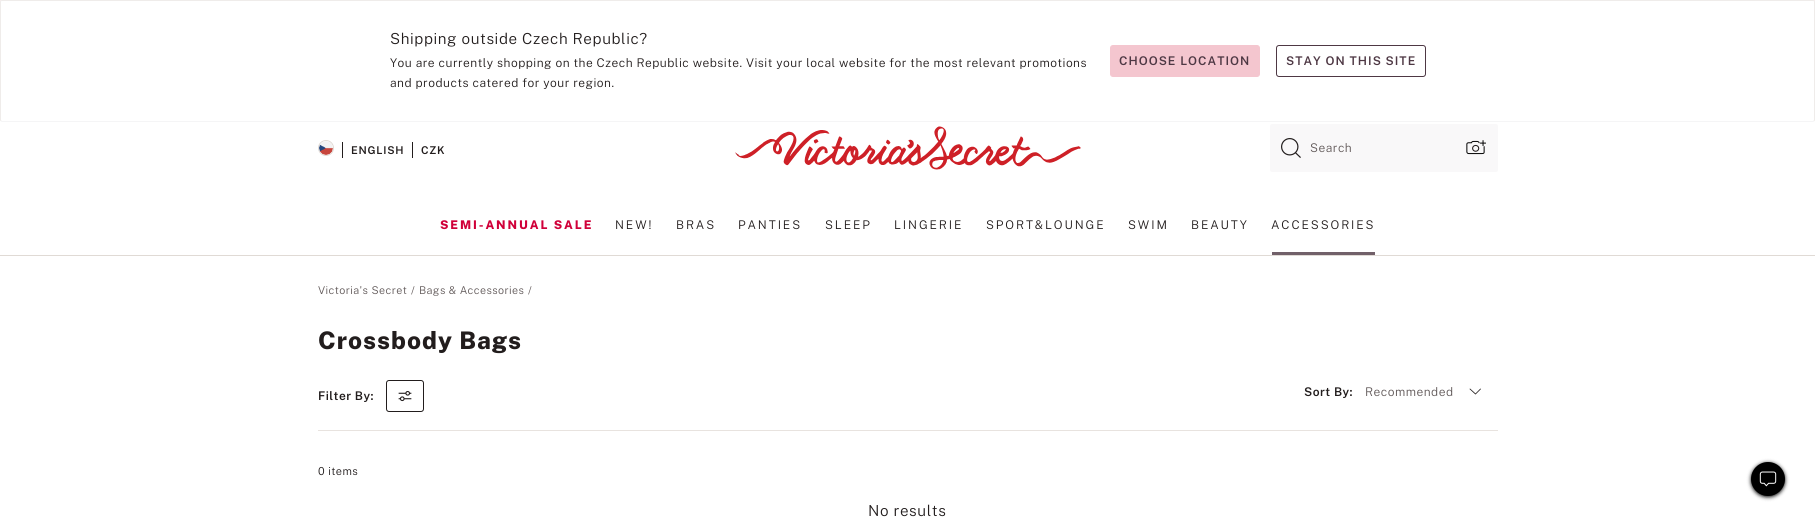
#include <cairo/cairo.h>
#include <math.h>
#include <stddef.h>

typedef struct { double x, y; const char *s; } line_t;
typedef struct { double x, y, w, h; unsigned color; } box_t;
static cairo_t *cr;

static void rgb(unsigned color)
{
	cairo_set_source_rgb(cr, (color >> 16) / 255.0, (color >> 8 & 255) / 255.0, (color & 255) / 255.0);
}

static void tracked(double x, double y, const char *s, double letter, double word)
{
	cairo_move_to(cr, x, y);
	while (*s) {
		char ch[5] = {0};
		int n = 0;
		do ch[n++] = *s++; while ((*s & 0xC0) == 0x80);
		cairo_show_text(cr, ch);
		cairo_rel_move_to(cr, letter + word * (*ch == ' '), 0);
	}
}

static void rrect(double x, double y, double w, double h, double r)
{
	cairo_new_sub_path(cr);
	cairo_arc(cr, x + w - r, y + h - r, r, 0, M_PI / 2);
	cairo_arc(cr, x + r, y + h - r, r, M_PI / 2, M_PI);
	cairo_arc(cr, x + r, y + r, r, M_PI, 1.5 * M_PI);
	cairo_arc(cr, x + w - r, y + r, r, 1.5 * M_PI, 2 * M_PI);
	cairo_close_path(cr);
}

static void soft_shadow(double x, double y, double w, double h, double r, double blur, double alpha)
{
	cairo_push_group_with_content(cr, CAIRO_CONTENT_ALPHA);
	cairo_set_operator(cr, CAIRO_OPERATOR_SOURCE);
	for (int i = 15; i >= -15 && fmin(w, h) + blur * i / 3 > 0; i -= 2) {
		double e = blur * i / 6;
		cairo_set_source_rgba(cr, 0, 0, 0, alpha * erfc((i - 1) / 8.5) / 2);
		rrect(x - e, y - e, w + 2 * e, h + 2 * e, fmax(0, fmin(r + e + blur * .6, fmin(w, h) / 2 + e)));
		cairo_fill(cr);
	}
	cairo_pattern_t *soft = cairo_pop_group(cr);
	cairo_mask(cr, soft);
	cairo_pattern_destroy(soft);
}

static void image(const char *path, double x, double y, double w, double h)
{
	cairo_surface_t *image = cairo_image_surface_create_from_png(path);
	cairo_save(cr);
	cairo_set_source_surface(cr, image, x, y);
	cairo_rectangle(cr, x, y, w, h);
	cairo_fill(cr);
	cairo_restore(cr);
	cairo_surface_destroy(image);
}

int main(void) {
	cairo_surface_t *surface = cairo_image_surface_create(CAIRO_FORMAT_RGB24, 1815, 526);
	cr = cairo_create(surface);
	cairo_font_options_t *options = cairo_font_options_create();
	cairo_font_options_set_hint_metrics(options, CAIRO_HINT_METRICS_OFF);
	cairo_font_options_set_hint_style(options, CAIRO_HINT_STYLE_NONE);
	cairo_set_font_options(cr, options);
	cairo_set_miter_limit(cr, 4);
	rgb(0xffffff);
	cairo_paint(cr);
	rgb(0xf9e2e7);
	cairo_rectangle(cr, 0, 0, 1815, 2);
	cairo_fill(cr);
	rgb(0xffffff);
	rrect(0, 0, 1815, 122, 2);
	cairo_fill(cr);
	cairo_new_path(cr);
	cairo_move_to(cr, 1814, 121);
	cairo_line_to(cr, 1813, 121.5);
	cairo_line_to(cr, 2, 121.5);
	cairo_line_to(cr, 1, 121);
	rgb(0xf5f5f6);
	cairo_set_line_width(cr, 1);
	cairo_stroke(cr);
	cairo_new_path(cr);
	cairo_move_to(cr, 1, 121);
	cairo_line_to(cr, 0.5, 120);
	cairo_line_to(cr, 0.5, 2);
	cairo_curve_to(cr, 0.5, 1, 1, 0.5, 2, 0.5);
	cairo_line_to(cr, 1813, 0.5);
	cairo_curve_to(cr, 1814, 0.5, 1814.5, 1, 1814.5, 2);
	cairo_line_to(cr, 1814.5, 120);
	cairo_line_to(cr, 1814, 121);
	rgb(0xefecea);
	cairo_stroke(cr);
	rgb(0xf4c6cf);
	rrect(1110.5, 45.5, 149, 31, 2.5);
	cairo_fill_preserve(cr);
	cairo_stroke(cr);
	rrect(1276.5, 45.5, 149, 31, 2.5);
	rgb(0x4e3844);
	cairo_stroke(cr);
	cairo_arc(cr, 326, 148, 7.5, 0, 2 * M_PI);
	rgb(0xe0dad5);
	cairo_stroke(cr);
	image("img/1.png", 319, 141, 14, 14);
	rgb(0x221d1d);
	cairo_rectangle(cr, 342, 142, 1, 16);
	cairo_fill(cr);
	cairo_rectangle(cr, 412, 142, 1, 16);
	cairo_fill(cr);
	image("img/2.png", 735, 126, 346, 44);
	rgb(0xf9f8f9);
	rrect(1270, 124, 228, 48, 2);
	cairo_fill(cr);
	image("img/3.png", 1281, 138, 20, 20);
	image("img/4.png", 1466, 140, 20, 15);
	{
		static const box_t items[] = {
			{1272, 252, 103, 3, 0x716069},
			{0, 255, 1815, 1, 0xe0dad5},
			{318, 430, 1180, 1, 0xe8e3df},
		};
		for (size_t i = 0; i < sizeof items / sizeof *items; i++) {
			rgb(items[i].color);
			cairo_rectangle(cr, items[i].x, items[i].y, items[i].w, items[i].h);
			cairo_fill(cr);
		}
	}
	rrect(386.5, 380.5, 37, 31, 2.5);
	rgb(0x221d1d);
	cairo_stroke(cr);
	image("img/5.png", 398, 391, 14, 11);
	cairo_new_path(cr);
	cairo_move_to(cr, 1480.5, 389);
	cairo_line_to(cr, 1475.5, 394);
	cairo_line_to(cr, 1470, 389);
	cairo_set_line_width(cr, 0.8);
	cairo_set_line_cap(cr, CAIRO_LINE_CAP_ROUND);
	cairo_stroke(cr);
	rgb(0x000000);
	soft_shadow(1751, 463, 34, 34, 17, 2, 1);
	rgb(0x000000);
	cairo_arc(cr, 1768, 479, 17, 0, 2 * M_PI);
	cairo_fill(cr);
	image("img/6.png", 1759, 471, 18, 16);
	cairo_select_font_face(cr, "Public Sans Light", CAIRO_FONT_SLANT_NORMAL, CAIRO_FONT_WEIGHT_NORMAL);
	cairo_set_font_size(cr, 15.2);
	rgb(0x221d1d);
	tracked(390, 44, "Shipping outside Czech Republic?", 0.6, 0);
	cairo_set_font_size(cr, 12);
	tracked(390, 67, "You are currently shopping on the Czech Republic website. Visit your local website for the most relevant promotions", 0.48, 0);
	tracked(390, 87, "and products catered for your region.", 0.48, 0);
	cairo_select_font_face(cr, "Public Sans SemiBold", CAIRO_FONT_SLANT_NORMAL, CAIRO_FONT_WEIGHT_NORMAL);
	rgb(0x4e3844);
	tracked(1119, 65, "CHOOSE LOCATION", 1, 0);
	tracked(1286, 65, "STAY ON THIS SITE", 1, 0);
	cairo_set_font_size(cr, 10.75);
	rgb(0x221d1d);
	tracked(351, 154, "ENGLISH", 0.75, 0);
	tracked(421, 154, "CZK", 0.75, 0);
	cairo_select_font_face(cr, "Public Sans Light", CAIRO_FONT_SLANT_NORMAL, CAIRO_FONT_WEIGHT_NORMAL);
	cairo_set_font_size(cr, 12);
	rgb(0x605858);
	tracked(1310, 152, "Search", 0.48, 0);
	cairo_select_font_face(cr, "Public Sans ExtraBold", CAIRO_FONT_SLANT_NORMAL, CAIRO_FONT_WEIGHT_NORMAL);
	rgb(0xd00039);
	tracked(440, 229, "SEMI-ANNUAL SALE", 1.9, 0);
	cairo_select_font_face(cr, "Public Sans Light", CAIRO_FONT_SLANT_NORMAL, CAIRO_FONT_WEIGHT_NORMAL);
	rgb(0x221d1d);
	{
		static const line_t items[] = {
			{615, 229, "NEW!"},
			{676, 229, "BRAS"},
			{738, 229, "PANTIES"},
			{825, 229, "SLEEP"},
			{894, 229, "LINGERIE"},
			{986, 229, "SPORT&LOUNGE"},
			{1128, 229, "SWIM"},
			{1191, 229, "BEAUTY"},
			{1271, 229, "ACCESSORIES"},
		};
		for (size_t i = 0; i < sizeof items / sizeof *items; i++) {
			tracked(items[i].x, items[i].y, items[i].s, 1.9, 0);
		}
	}
	cairo_set_font_size(cr, 10.75);
	rgb(0x605858);
	{
		static const line_t items[] = {
			{318, 294, "Victoria's Secret"},
			{411, 294, "/"},
			{419, 294, "Bags & Accessories"},
			{528, 294, "/"},
		};
		for (size_t i = 0; i < sizeof items / sizeof *items; i++) {
			tracked(items[i].x, items[i].y, items[i].s, 0.4, 0);
		}
	}
	cairo_select_font_face(cr, "Public Sans ExtraBold", CAIRO_FONT_SLANT_NORMAL, CAIRO_FONT_WEIGHT_NORMAL);
	cairo_set_font_size(cr, 24.25);
	rgb(0x221d1d);
	tracked(318, 349, "Crossbody Bags", 1, 0);
	cairo_select_font_face(cr, "Public Sans SemiBold", CAIRO_FONT_SLANT_NORMAL, CAIRO_FONT_WEIGHT_NORMAL);
	cairo_set_font_size(cr, 12);
	tracked(318, 400, "Filter By:", 0.48, 0);
	tracked(1304, 396, "Sort By:", 0.48, 0);
	cairo_select_font_face(cr, "Public Sans Light", CAIRO_FONT_SLANT_NORMAL, CAIRO_FONT_WEIGHT_NORMAL);
	rgb(0x605858);
	tracked(1365, 396, "Recommended", 0.48, 0);
	cairo_set_font_size(cr, 11);
	rgb(0x221d1d);
	tracked(318, 475, "0 items", 0.4, 0);
	cairo_set_font_size(cr, 15.2);
	tracked(868, 516, "No results", 0.6, 0);
	cairo_surface_write_to_png(surface, "page.png");
	cairo_font_options_destroy(options);
	cairo_destroy(cr);
	cairo_surface_destroy(surface);
	return 0;
}
